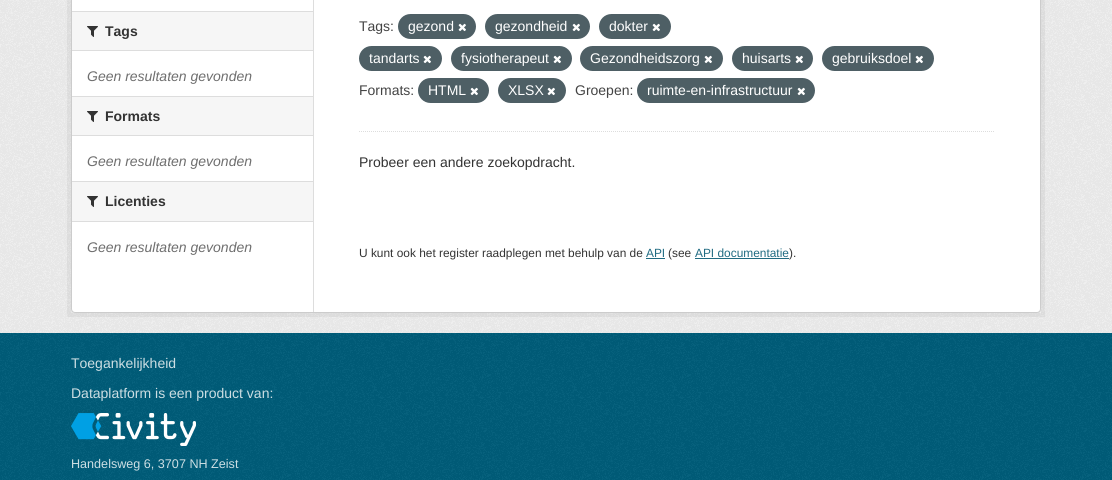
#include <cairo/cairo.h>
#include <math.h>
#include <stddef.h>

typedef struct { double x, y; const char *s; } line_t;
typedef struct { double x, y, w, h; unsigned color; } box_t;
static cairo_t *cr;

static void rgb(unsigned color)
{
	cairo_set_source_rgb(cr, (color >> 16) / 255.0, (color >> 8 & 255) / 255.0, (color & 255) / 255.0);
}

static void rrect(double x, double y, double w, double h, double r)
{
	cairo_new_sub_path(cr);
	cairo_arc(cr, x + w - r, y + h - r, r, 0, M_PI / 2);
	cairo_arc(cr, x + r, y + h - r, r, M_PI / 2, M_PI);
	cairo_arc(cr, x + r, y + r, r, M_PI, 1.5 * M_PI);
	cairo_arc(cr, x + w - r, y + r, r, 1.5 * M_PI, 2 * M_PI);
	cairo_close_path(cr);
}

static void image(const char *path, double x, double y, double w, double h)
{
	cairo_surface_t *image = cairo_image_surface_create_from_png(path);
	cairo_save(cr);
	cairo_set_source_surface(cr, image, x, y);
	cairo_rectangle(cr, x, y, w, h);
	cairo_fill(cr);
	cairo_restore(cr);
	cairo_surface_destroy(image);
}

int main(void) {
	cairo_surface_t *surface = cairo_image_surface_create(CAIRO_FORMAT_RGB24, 1112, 480);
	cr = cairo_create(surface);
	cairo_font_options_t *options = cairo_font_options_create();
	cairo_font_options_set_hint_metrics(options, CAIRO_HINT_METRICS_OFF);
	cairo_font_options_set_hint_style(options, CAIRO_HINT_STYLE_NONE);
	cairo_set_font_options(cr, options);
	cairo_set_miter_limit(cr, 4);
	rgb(0x005d7a);
	cairo_paint(cr);
	rgb(0xeeeeee);
	cairo_rectangle(cr, 0, 0, 1112, 333);
	cairo_fill(cr);
	image("img/1.png", 0, 0, 1112, 333);
	cairo_rectangle(cr, 69, -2, 974, 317);
	cairo_set_source_rgba(cr, 0, 0, 0, 0.05);
	cairo_set_line_width(cr, 4);
	cairo_stroke(cr);
	rgb(0xffffff);
	rrect(71.5, -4.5, 969, 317, 3.5);
	cairo_fill_preserve(cr);
	rgb(0xcccccc);
	cairo_set_line_width(cr, 1);
	cairo_stroke(cr);
	{
		static const box_t items[] = {
			{72, 12, 241, 38, 0xf6f6f6},
			{72, 11, 241, 1, 0xdddddd},
			{72, 50, 241, 1, 0xdddddd},
		};
		for (size_t i = 0; i < sizeof items / sizeof *items; i++) {
			rgb(items[i].color);
			cairo_rectangle(cr, items[i].x, items[i].y, items[i].w, items[i].h);
			cairo_fill(cr);
		}
	}
	image("img/2.png", 87, 26, 11, 11);
	{
		static const box_t items[] = {
			{72, 97, 241, 38, 0xf6f6f6},
			{72, 96, 241, 1, 0xdddddd},
			{72, 135, 241, 1, 0xdddddd},
		};
		for (size_t i = 0; i < sizeof items / sizeof *items; i++) {
			rgb(items[i].color);
			cairo_rectangle(cr, items[i].x, items[i].y, items[i].w, items[i].h);
			cairo_fill(cr);
		}
	}
	image("img/2.png", 87, 111, 11, 11);
	{
		static const box_t items[] = {
			{72, 182, 241, 39, 0xf6f6f6},
			{72, 181, 241, 1, 0xdddddd},
			{72, 221, 241, 1, 0xdddddd},
		};
		for (size_t i = 0; i < sizeof items / sizeof *items; i++) {
			rgb(items[i].color);
			cairo_rectangle(cr, items[i].x, items[i].y, items[i].w, items[i].h);
			cairo_fill(cr);
		}
	}
	image("img/2.png", 87, 196, 11, 11);
	cairo_rectangle(cr, 313, 0, 1, 312);
	cairo_fill(cr);
	cairo_new_path(cr);
	cairo_move_to(cr, 359, 131.5);
	cairo_line_to(cr, 995, 131.5);
	cairo_set_dash(cr, (double[]){1, 1}, 2, 0);
	cairo_stroke(cr);
	rgb(0x4e5f65);
	rrect(398, 14, 78, 25, 12.5);
	cairo_fill(cr);
	image("img/3.png", 458, 23, 8, 9);
	rrect(485, 14, 105, 25, 12.5);
	cairo_fill(cr);
	image("img/3.png", 572, 23, 8, 9);
	rrect(599, 14, 72, 25, 12.5);
	cairo_fill(cr);
	image("img/3.png", 652, 23, 8, 9);
	rrect(359, 46, 83, 25, 12.5);
	cairo_fill(cr);
	image("img/3.png", 423, 55, 8, 9);
	rrect(451, 46, 121, 25, 12.5);
	cairo_fill(cr);
	image("img/3.png", 553, 55, 8, 9);
	rrect(580, 46, 143, 25, 12.5);
	cairo_fill(cr);
	image("img/3.png", 704, 55, 8, 9);
	rrect(732, 46, 81, 25, 12.5);
	cairo_fill(cr);
	image("img/3.png", 795, 55, 8, 9);
	rrect(822, 46, 112, 25, 12.5);
	cairo_fill(cr);
	image("img/3.png", 915, 55, 8, 9);
	rrect(418, 78, 71, 25, 12.5);
	cairo_fill(cr);
	image("img/3.png", 470, 87, 8, 9);
	rrect(498, 78, 68, 25, 12.5);
	cairo_fill(cr);
	image("img/3.png", 547, 87, 8, 9);
	rrect(637, 78, 178, 25, 12.5);
	cairo_fill(cr);
	image("img/3.png", 797, 87, 8, 9);
	rgb(0x206b82);
	cairo_rectangle(cr, 646, 258, 19, 1);
	cairo_fill(cr);
	cairo_rectangle(cr, 695, 258, 94, 1);
	cairo_fill(cr);
	image("img/4.png", 0, 333, 1112, 147);
	image("img/5.png", 71, 413, 125, 33);
	cairo_select_font_face(cr, "Liberation Sans", CAIRO_FONT_SLANT_NORMAL, CAIRO_FONT_WEIGHT_BOLD);
	cairo_set_font_size(cr, 14);
	rgb(0x333333);
	cairo_move_to(cr, 105, 36);
	cairo_show_text(cr, "Tags");
	cairo_select_font_face(cr, "Liberation Sans", CAIRO_FONT_SLANT_ITALIC, CAIRO_FONT_WEIGHT_NORMAL);
	rgb(0x6e6e6e);
	cairo_move_to(cr, 87, 81);
	cairo_show_text(cr, "Geen resultaten gevonden");
	cairo_select_font_face(cr, "Liberation Sans", CAIRO_FONT_SLANT_NORMAL, CAIRO_FONT_WEIGHT_BOLD);
	rgb(0x333333);
	cairo_move_to(cr, 105, 121);
	cairo_show_text(cr, "Formats");
	cairo_select_font_face(cr, "Liberation Sans", CAIRO_FONT_SLANT_ITALIC, CAIRO_FONT_WEIGHT_NORMAL);
	rgb(0x6e6e6e);
	cairo_move_to(cr, 87, 166);
	cairo_show_text(cr, "Geen resultaten gevonden");
	cairo_select_font_face(cr, "Liberation Sans", CAIRO_FONT_SLANT_NORMAL, CAIRO_FONT_WEIGHT_BOLD);
	rgb(0x333333);
	cairo_move_to(cr, 105, 206);
	cairo_show_text(cr, "Licenties");
	cairo_select_font_face(cr, "Liberation Sans", CAIRO_FONT_SLANT_ITALIC, CAIRO_FONT_WEIGHT_NORMAL);
	rgb(0x6e6e6e);
	cairo_move_to(cr, 87, 252);
	cairo_show_text(cr, "Geen resultaten gevonden");
	cairo_select_font_face(cr, "Liberation Sans", CAIRO_FONT_SLANT_NORMAL, CAIRO_FONT_WEIGHT_NORMAL);
	rgb(0x444444);
	cairo_move_to(cr, 359, 31);
	cairo_show_text(cr, "Tags:");
	rgb(0xffffff);
	{
		static const line_t items[] = {
			{408, 31, "gezond"},
			{495, 31, "gezondheid"},
			{609, 31, "dokter"},
			{369, 63, "tandarts"},
			{461, 63, "fysiotherapeut"},
			{590, 63, "Gezondheidszorg"},
			{742, 63, "huisarts"},
			{832, 63, "gebruiksdoel"},
		};
		for (size_t i = 0; i < sizeof items / sizeof *items; i++) {
			cairo_move_to(cr, items[i].x, items[i].y);
			cairo_show_text(cr, items[i].s);
		}
	}
	rgb(0x444444);
	cairo_move_to(cr, 359, 95);
	cairo_show_text(cr, "Formats:");
	rgb(0xffffff);
	cairo_move_to(cr, 428, 95);
	cairo_show_text(cr, "HTML");
	cairo_move_to(cr, 508, 95);
	cairo_show_text(cr, "XLSX");
	rgb(0x444444);
	cairo_move_to(cr, 575, 95);
	cairo_show_text(cr, "Groepen:");
	rgb(0xffffff);
	cairo_move_to(cr, 647, 95);
	cairo_show_text(cr, "ruimte-en-infrastructuur");
	rgb(0x333333);
	cairo_move_to(cr, 359, 167);
	cairo_show_text(cr, "Probeer een andere zoekopdracht.");
	cairo_set_font_size(cr, 11.9);
	cairo_move_to(cr, 359, 257);
	cairo_show_text(cr, "U kunt ook het register raadplegen met behulp van de");
	rgb(0x206b82);
	cairo_move_to(cr, 646, 257);
	cairo_show_text(cr, "API");
	rgb(0x333333);
	cairo_move_to(cr, 668, 257);
	cairo_show_text(cr, "(see");
	rgb(0x206b82);
	cairo_move_to(cr, 695, 257);
	cairo_show_text(cr, "API documentatie");
	rgb(0x333333);
	cairo_move_to(cr, 789, 257);
	cairo_show_text(cr, ").");
	cairo_set_font_size(cr, 14);
	rgb(0xccdee3);
	cairo_move_to(cr, 71, 368);
	cairo_show_text(cr, "Toegankelijkheid");
	cairo_move_to(cr, 71, 398);
	cairo_show_text(cr, "Dataplatform is een product van:");
	cairo_set_font_size(cr, 12.6);
	cairo_move_to(cr, 71, 468);
	cairo_show_text(cr, "Handelsweg 6, 3707 NH Zeist");
	cairo_surface_write_to_png(surface, "page.png");
	cairo_font_options_destroy(options);
	cairo_destroy(cr);
	cairo_surface_destroy(surface);
	return 0;
}
